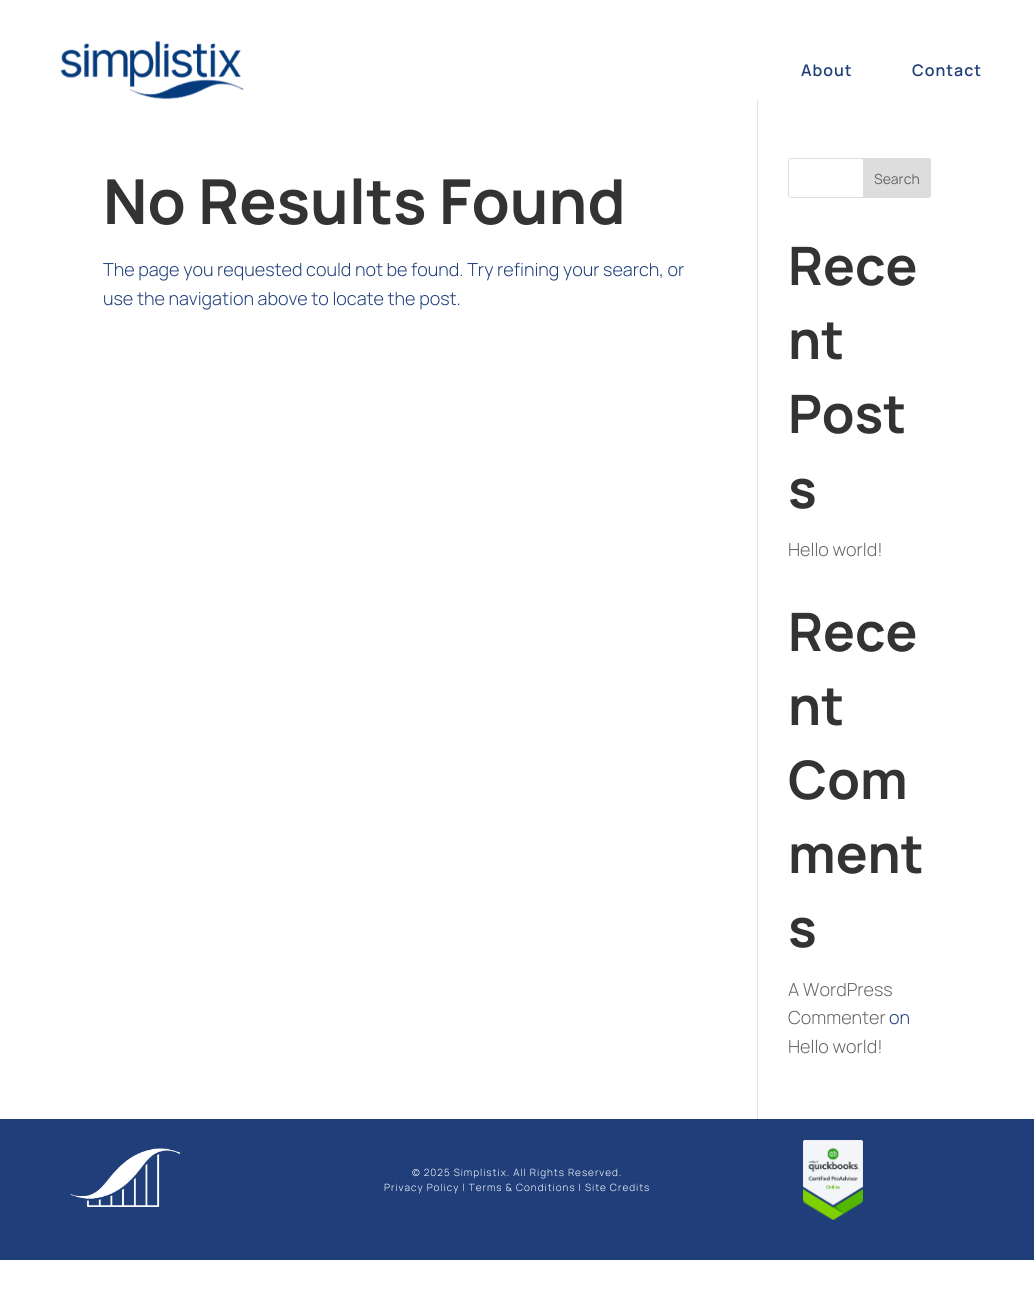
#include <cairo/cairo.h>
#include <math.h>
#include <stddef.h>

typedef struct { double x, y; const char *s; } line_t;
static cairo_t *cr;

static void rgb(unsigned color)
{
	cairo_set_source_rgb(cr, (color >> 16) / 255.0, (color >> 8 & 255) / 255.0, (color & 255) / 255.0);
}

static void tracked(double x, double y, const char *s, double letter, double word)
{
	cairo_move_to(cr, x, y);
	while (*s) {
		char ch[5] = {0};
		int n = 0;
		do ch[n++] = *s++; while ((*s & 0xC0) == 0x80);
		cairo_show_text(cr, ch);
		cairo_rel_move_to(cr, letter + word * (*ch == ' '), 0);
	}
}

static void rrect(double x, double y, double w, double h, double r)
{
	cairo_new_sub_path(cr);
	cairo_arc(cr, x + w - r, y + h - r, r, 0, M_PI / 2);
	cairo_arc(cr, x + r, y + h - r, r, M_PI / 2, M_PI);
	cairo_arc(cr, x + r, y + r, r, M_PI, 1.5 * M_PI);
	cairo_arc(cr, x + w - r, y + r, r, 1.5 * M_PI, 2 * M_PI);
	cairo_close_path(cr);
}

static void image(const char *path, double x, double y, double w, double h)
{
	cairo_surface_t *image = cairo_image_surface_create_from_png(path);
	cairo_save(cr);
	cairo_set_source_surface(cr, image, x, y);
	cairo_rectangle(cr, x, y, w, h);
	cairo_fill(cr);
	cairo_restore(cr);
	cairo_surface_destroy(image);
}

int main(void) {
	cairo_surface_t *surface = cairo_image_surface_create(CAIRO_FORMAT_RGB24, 1034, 1291);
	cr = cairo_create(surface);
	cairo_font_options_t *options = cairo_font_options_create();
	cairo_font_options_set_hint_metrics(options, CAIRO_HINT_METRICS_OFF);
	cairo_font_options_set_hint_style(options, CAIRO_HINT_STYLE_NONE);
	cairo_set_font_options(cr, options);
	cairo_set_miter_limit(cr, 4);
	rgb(0xffffff);
	cairo_paint(cr);
	image("img/1.png", 60, 41, 184, 58);
	rgb(0xe2e2e2);
	cairo_rectangle(cr, 757, 100, 1, 1019);
	cairo_fill(cr);
	rrect(788.5, 158.5, 142, 39, 2.5);
	rgb(0xdddddd);
	cairo_set_line_width(cr, 1);
	cairo_stroke(cr);
	cairo_new_path(cr);
	cairo_move_to(cr, 863.5, 158.5);
	cairo_line_to(cr, 928, 158.5);
	cairo_curve_to(cr, 929.5, 158.5, 930.5, 159.5, 930.5, 161);
	cairo_line_to(cr, 930.5, 195);
	cairo_curve_to(cr, 930.5, 196.5, 929.5, 197.5, 928, 197.5);
	cairo_line_to(cr, 863.5, 197.5);
	cairo_close_path(cr);
	cairo_fill_preserve(cr);
	cairo_stroke(cr);
	rgb(0x203f7a);
	cairo_rectangle(cr, 0, 1119, 1034, 141);
	cairo_fill(cr);
	image("img/2.png", 70, 1148, 111, 59);
	image("img/3.png", 803, 1140, 60, 80);
	cairo_select_font_face(cr, "Manrope SemiBold", CAIRO_FONT_SLANT_NORMAL, CAIRO_FONT_WEIGHT_NORMAL);
	cairo_set_font_size(cr, 16);
	tracked(801, 76, "About", 1, 0);
	tracked(912, 76, "Contact", 1, 0);
	cairo_select_font_face(cr, "Manrope", CAIRO_FONT_SLANT_NORMAL, CAIRO_FONT_WEIGHT_BOLD);
	cairo_set_font_size(cr, 62);
	rgb(0x333333);
	cairo_move_to(cr, 103, 224);
	cairo_show_text(cr, "No Results Found");
	cairo_select_font_face(cr, "Manrope Light", CAIRO_FONT_SLANT_NORMAL, CAIRO_FONT_WEIGHT_NORMAL);
	cairo_set_font_size(cr, 18);
	rgb(0x203f7a);
	cairo_move_to(cr, 103, 276);
	cairo_show_text(cr, "The page you requested could not be found. Try refining your search, or");
	cairo_move_to(cr, 103, 305);
	cairo_show_text(cr, "use the navigation above to locate the post.");
	cairo_select_font_face(cr, "Manrope", CAIRO_FONT_SLANT_NORMAL, CAIRO_FONT_WEIGHT_NORMAL);
	cairo_set_font_size(cr, 14);
	rgb(0x666666);
	cairo_move_to(cr, 874, 184);
	cairo_show_text(cr, "Search");
	cairo_select_font_face(cr, "Manrope", CAIRO_FONT_SLANT_NORMAL, CAIRO_FONT_WEIGHT_BOLD);
	cairo_set_font_size(cr, 53);
	rgb(0x333333);
	{
		static const line_t items[] = {
			{788, 285, "Rece"},
			{788, 359, "nt"},
			{788, 433, "Post"},
			{788, 508, "s"},
		};
		for (size_t i = 0; i < sizeof items / sizeof *items; i++) {
			cairo_move_to(cr, items[i].x, items[i].y);
			cairo_show_text(cr, items[i].s);
		}
	}
	cairo_select_font_face(cr, "Manrope Light", CAIRO_FONT_SLANT_NORMAL, CAIRO_FONT_WEIGHT_NORMAL);
	cairo_set_font_size(cr, 18);
	rgb(0x666666);
	cairo_move_to(cr, 788, 556);
	cairo_show_text(cr, "Hello world!");
	cairo_select_font_face(cr, "Manrope", CAIRO_FONT_SLANT_NORMAL, CAIRO_FONT_WEIGHT_BOLD);
	cairo_set_font_size(cr, 53);
	rgb(0x333333);
	{
		static const line_t items[] = {
			{788, 651, "Rece"},
			{788, 725, "nt"},
			{788, 799, "Com"},
			{788, 873, "ment"},
			{788, 947, "s"},
		};
		for (size_t i = 0; i < sizeof items / sizeof *items; i++) {
			cairo_move_to(cr, items[i].x, items[i].y);
			cairo_show_text(cr, items[i].s);
		}
	}
	cairo_select_font_face(cr, "Manrope Light", CAIRO_FONT_SLANT_NORMAL, CAIRO_FONT_WEIGHT_NORMAL);
	cairo_set_font_size(cr, 18);
	rgb(0x666666);
	cairo_move_to(cr, 788, 996);
	cairo_show_text(cr, "A WordPress");
	cairo_move_to(cr, 788, 1024);
	cairo_show_text(cr, "Commenter");
	rgb(0x203f7a);
	cairo_move_to(cr, 889, 1024);
	cairo_show_text(cr, "on");
	rgb(0x666666);
	cairo_move_to(cr, 788, 1053);
	cairo_show_text(cr, "Hello world!");
	cairo_set_font_size(cr, 10);
	rgb(0xffffff);
	tracked(412, 1176, "© 2025 Simplistix. All Rights Reserved.", 1, 0);
	tracked(384, 1191, "Privacy Policy | Terms & Conditions | Site Credits", 1, 0);
	cairo_surface_write_to_png(surface, "page.png");
	cairo_font_options_destroy(options);
	cairo_destroy(cr);
	cairo_surface_destroy(surface);
	return 0;
}
